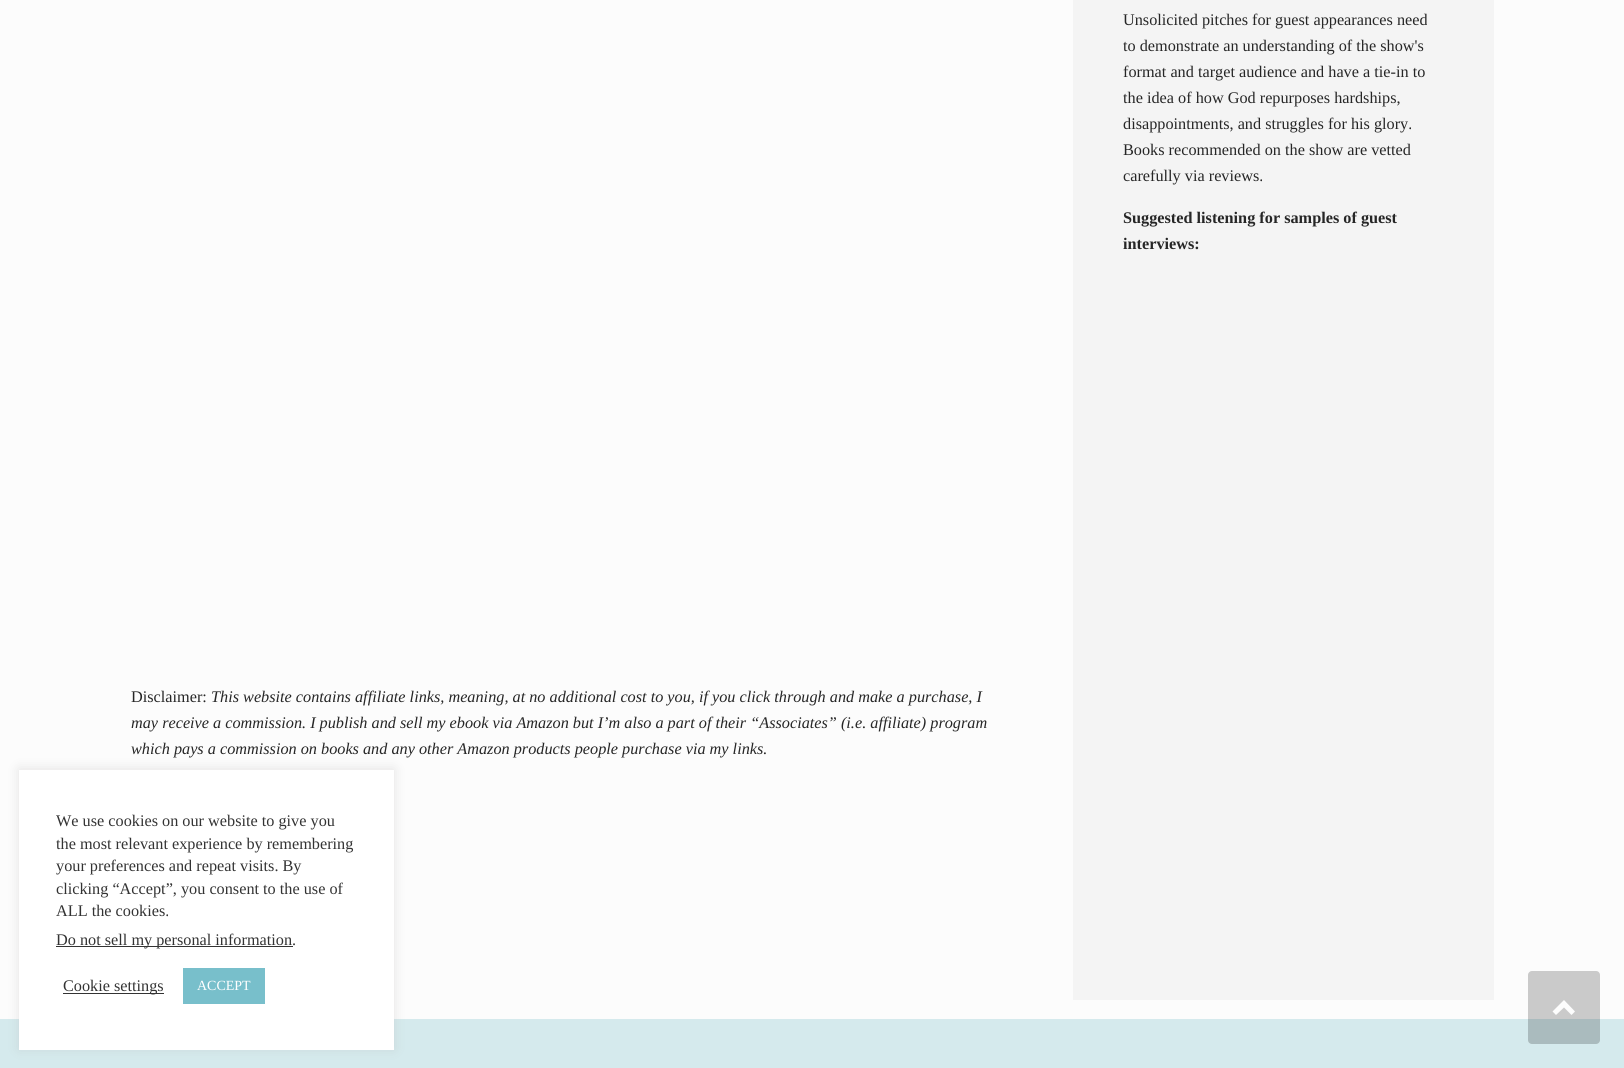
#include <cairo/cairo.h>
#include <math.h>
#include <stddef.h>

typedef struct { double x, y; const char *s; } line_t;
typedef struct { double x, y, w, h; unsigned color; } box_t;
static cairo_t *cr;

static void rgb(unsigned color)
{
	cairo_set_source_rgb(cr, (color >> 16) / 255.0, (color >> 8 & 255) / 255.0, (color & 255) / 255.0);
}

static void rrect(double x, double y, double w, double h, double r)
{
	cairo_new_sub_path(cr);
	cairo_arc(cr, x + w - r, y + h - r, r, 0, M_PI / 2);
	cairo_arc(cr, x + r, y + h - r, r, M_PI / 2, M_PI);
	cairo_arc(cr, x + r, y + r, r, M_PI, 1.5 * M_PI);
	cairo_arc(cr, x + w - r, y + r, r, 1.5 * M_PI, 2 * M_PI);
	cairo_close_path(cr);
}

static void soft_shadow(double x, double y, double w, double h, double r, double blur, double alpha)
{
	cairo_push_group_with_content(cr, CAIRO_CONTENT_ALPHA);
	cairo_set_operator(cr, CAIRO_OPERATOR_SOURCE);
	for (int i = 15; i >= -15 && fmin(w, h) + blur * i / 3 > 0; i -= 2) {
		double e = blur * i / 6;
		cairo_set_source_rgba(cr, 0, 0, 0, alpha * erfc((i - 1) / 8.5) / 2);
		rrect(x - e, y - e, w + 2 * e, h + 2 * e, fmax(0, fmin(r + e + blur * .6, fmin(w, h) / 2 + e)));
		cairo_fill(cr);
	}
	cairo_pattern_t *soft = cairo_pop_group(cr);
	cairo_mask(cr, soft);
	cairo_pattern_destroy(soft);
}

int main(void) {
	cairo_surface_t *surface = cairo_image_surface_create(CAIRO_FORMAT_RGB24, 1624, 1068);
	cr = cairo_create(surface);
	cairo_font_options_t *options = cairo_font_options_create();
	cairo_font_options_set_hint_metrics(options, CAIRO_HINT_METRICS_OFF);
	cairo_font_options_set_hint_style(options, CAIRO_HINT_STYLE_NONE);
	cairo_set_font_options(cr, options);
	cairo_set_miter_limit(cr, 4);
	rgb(0xfcfcfc);
	cairo_paint(cr);
	rgb(0xf4f4f4);
	cairo_rectangle(cr, 1073, 0, 421, 1000);
	cairo_fill(cr);
	rgb(0xd5eaed);
	cairo_rectangle(cr, 0, 1019, 1624, 49);
	cairo_fill(cr);
	rgb(0xacabab);
	soft_shadow(19, 769, 375, 280, 0, 6, 0.3);
	{
		static const box_t items[] = {
			{19, 770, 375, 280, 0xffffff},
			{56, 946, 237, 1, 0x333333},
			{63, 993, 101, 1, 0x333333},
			{183, 968, 82, 36, 0x78bfcb},
		};
		for (size_t i = 0; i < sizeof items / sizeof *items; i++) {
			rgb(items[i].color);
			cairo_rectangle(cr, items[i].x, items[i].y, items[i].w, items[i].h);
			cairo_fill(cr);
		}
	}
	cairo_set_source_rgba(cr, 0, 0, 0, 0.2);
	rrect(1528, 971, 72, 73, 4);
	cairo_fill(cr);
	rgb(0xfdfdfd);
	cairo_new_path(cr);
	cairo_move_to(cr, 1575, 1011.5);
	cairo_line_to(cr, 1564, 1000);
	cairo_line_to(cr, 1552.5, 1011.5);
	cairo_line_to(cr, 1556, 1015);
	cairo_line_to(cr, 1564, 1007.5);
	cairo_line_to(cr, 1571.5, 1015);
	cairo_close_path(cr);
	cairo_fill(cr);
	cairo_select_font_face(cr, "Liberation Serif", CAIRO_FONT_SLANT_NORMAL, CAIRO_FONT_WEIGHT_NORMAL);
	cairo_set_font_size(cr, 16.25);
	rgb(0x262626);
	{
		static const line_t items[] = {
			{1123, 25, "Unsolicited pitches for guest appearances need"},
			{1123, 51, "to demonstrate an understanding of the show's"},
			{1123, 77, "format and target audience and have a tie-in to"},
			{1123, 103, "the idea of how God repurposes hardships,"},
			{1123, 129, "disappointments, and struggles for his glory."},
			{1123, 155, "Books recommended on the show are vetted"},
			{1123, 181, "carefully via reviews."},
		};
		for (size_t i = 0; i < sizeof items / sizeof *items; i++) {
			cairo_move_to(cr, items[i].x, items[i].y);
			cairo_show_text(cr, items[i].s);
		}
	}
	cairo_select_font_face(cr, "Liberation Serif", CAIRO_FONT_SLANT_NORMAL, CAIRO_FONT_WEIGHT_BOLD);
	cairo_move_to(cr, 1123, 223);
	cairo_show_text(cr, "Suggested listening for samples of guest");
	cairo_move_to(cr, 1123, 249);
	cairo_show_text(cr, "interviews:");
	cairo_select_font_face(cr, "Liberation Serif", CAIRO_FONT_SLANT_NORMAL, CAIRO_FONT_WEIGHT_NORMAL);
	cairo_move_to(cr, 131, 702);
	cairo_show_text(cr, "Disclaimer:");
	cairo_select_font_face(cr, "Liberation Serif", CAIRO_FONT_SLANT_ITALIC, CAIRO_FONT_WEIGHT_NORMAL);
	{
		static const line_t items[] = {
			{211, 702, "This website contains affiliate links, meaning, at no additional cost to you, if you click through and make a purchase, I"},
			{131, 728, "may receive a commission. I publish and sell my ebook via Amazon but I’m also a part of their “Associates” (i.e. affiliate) program"},
			{131, 754, "which pays a commission on books and any other Amazon products people purchase via my links."},
		};
		for (size_t i = 0; i < sizeof items / sizeof *items; i++) {
			cairo_move_to(cr, items[i].x, items[i].y);
			cairo_show_text(cr, items[i].s);
		}
	}
	cairo_select_font_face(cr, "Liberation Serif", CAIRO_FONT_SLANT_NORMAL, CAIRO_FONT_WEIGHT_NORMAL);
	rgb(0x333333);
	{
		static const line_t items[] = {
			{56, 826, "We use cookies on our website to give you"},
			{56, 849, "the most relevant experience by remembering"},
			{56, 871, "your preferences and repeat visits. By"},
			{56, 894, "clicking “Accept”, you consent to the use of"},
			{56, 916, "ALL the cookies."},
			{56, 945, "Do not sell my personal information."},
			{63, 991, "Cookie settings"},
		};
		for (size_t i = 0; i < sizeof items / sizeof *items; i++) {
			cairo_move_to(cr, items[i].x, items[i].y);
			cairo_show_text(cr, items[i].s);
		}
	}
	cairo_set_font_size(cr, 14);
	rgb(0xffffff);
	cairo_move_to(cr, 197, 990);
	cairo_show_text(cr, "ACCEPT");
	cairo_surface_write_to_png(surface, "page.png");
	cairo_font_options_destroy(options);
	cairo_destroy(cr);
	cairo_surface_destroy(surface);
	return 0;
}
